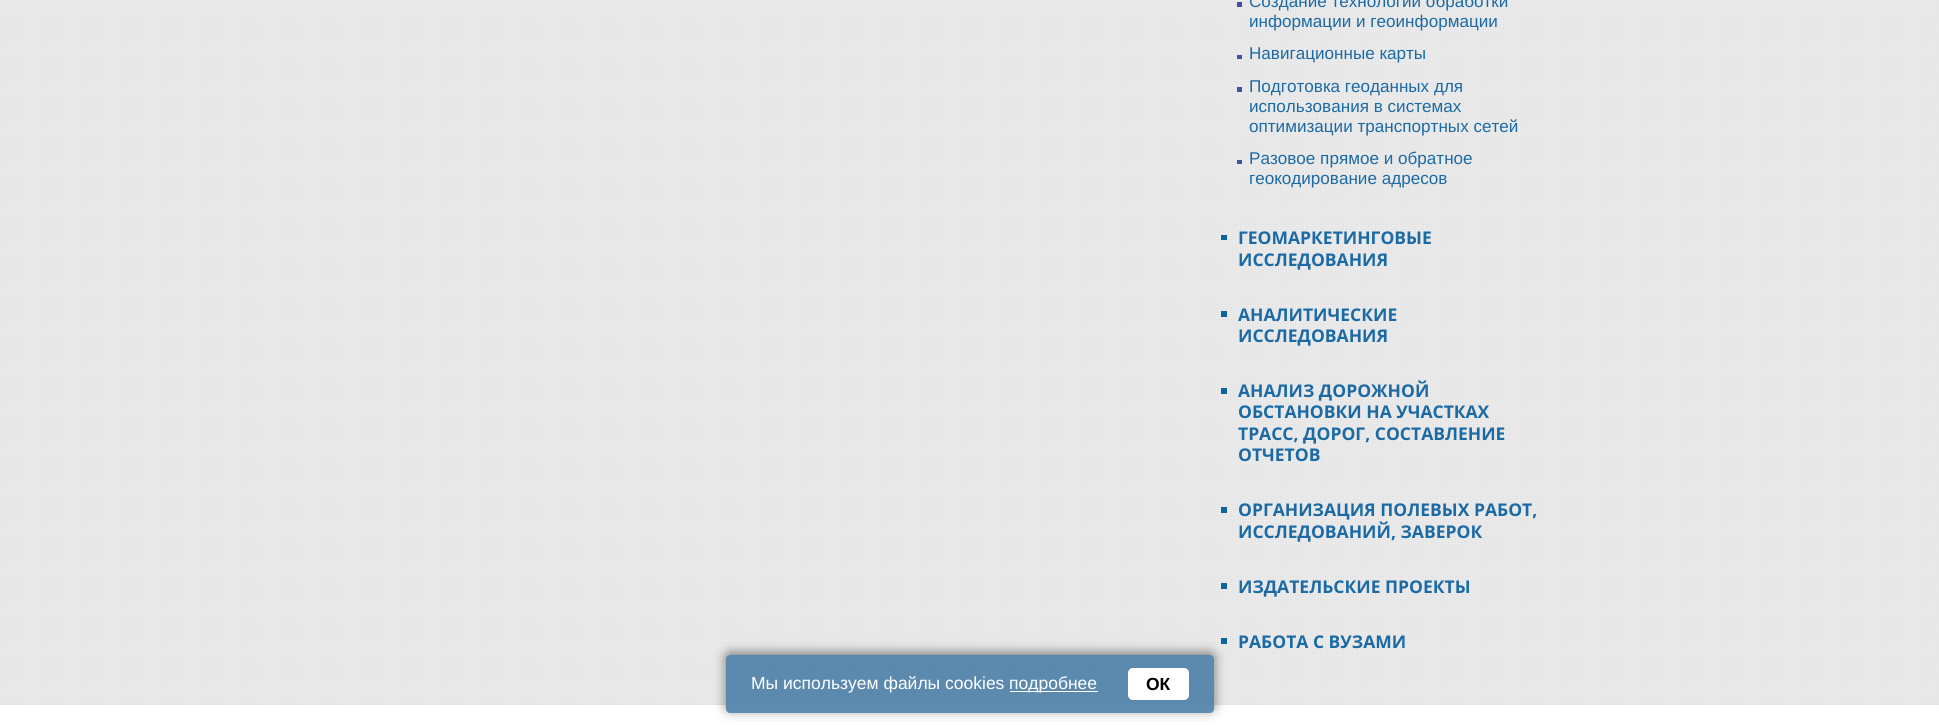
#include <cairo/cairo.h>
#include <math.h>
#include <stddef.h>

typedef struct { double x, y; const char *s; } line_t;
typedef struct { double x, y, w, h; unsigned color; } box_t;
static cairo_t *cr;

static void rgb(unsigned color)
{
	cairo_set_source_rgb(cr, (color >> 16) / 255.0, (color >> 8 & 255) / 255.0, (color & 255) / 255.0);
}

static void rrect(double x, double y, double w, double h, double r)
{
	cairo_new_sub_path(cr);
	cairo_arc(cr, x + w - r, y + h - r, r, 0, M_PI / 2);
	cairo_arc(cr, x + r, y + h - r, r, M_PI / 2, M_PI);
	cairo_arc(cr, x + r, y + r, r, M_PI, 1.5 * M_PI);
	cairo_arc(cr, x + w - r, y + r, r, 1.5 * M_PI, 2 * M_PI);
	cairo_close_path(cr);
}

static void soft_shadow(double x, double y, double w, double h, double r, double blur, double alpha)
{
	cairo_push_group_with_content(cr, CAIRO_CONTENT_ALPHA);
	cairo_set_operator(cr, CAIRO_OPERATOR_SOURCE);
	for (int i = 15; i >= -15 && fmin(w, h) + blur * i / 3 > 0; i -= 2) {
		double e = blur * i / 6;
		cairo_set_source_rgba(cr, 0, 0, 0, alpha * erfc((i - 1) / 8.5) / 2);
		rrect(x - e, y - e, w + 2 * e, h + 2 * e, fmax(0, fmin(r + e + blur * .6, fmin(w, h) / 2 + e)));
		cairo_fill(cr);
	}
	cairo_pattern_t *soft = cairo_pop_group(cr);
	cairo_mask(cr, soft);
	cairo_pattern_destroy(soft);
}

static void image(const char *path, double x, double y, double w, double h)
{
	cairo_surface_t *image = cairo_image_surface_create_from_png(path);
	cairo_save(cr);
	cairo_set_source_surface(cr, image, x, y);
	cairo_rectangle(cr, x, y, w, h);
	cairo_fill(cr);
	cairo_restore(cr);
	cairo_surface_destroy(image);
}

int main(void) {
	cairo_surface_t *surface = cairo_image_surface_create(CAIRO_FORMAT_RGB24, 1939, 725);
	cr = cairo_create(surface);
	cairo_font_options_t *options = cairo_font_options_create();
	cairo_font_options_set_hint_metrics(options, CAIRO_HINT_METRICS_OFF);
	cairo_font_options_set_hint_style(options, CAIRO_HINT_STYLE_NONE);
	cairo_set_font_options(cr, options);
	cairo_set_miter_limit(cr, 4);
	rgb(0xffffff);
	cairo_paint(cr);
	rgb(0xebebeb);
	cairo_rectangle(cr, 0, 0, 1939, 705);
	cairo_fill(cr);
	image("img/1.png", 0, 1, 1939, 704);
	{
		static const box_t items[] = {
			{1237, 2, 5, 5, 0x454fa0},
			{1237, 55, 5, 4, 0x454fa0},
			{1237, 87, 5, 5, 0x454fa0},
			{1237, 160, 5, 4, 0x454fa0},
			{1221, 235, 6, 5, 0x0d64a1},
			{1221, 311, 6, 6, 0x0d64a1},
			{1221, 388, 6, 6, 0x0d64a1},
			{1221, 507, 6, 6, 0x0d64a1},
			{1221, 583, 6, 6, 0x0d64a1},
			{1221, 638, 6, 6, 0x0d64a1},
		};
		for (size_t i = 0; i < sizeof items / sizeof *items; i++) {
			rgb(items[i].color);
			cairo_rectangle(cr, items[i].x, items[i].y, items[i].w, items[i].h);
			cairo_fill(cr);
		}
	}
	cairo_save(cr);
	cairo_set_fill_rule(cr, CAIRO_FILL_RULE_EVEN_ODD);
	cairo_new_path(cr);
	cairo_move_to(cr, 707, 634);
	cairo_line_to(cr, 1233, 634);
	cairo_line_to(cr, 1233, 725);
	cairo_line_to(cr, 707, 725);
	cairo_close_path(cr);
	cairo_move_to(cr, 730, 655);
	cairo_line_to(cr, 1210, 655);
	cairo_curve_to(cr, 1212, 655, 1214, 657, 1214, 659);
	cairo_line_to(cr, 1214, 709);
	cairo_curve_to(cr, 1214, 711, 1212, 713, 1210, 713);
	cairo_line_to(cr, 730, 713);
	cairo_curve_to(cr, 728, 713, 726, 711, 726, 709);
	cairo_line_to(cr, 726, 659);
	cairo_curve_to(cr, 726, 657, 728, 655, 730, 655);
	cairo_close_path(cr);
	cairo_clip(cr);
	rgb(0x000000);
	soft_shadow(726, 653, 488, 57, 4, 6, 0.5);
	cairo_restore(cr);
	cairo_set_source_rgba(cr, 0.302, 0.502, 0.663, 0.9);
	rrect(726, 655, 488, 58, 4);
	cairo_fill(cr);
	rgb(0xffffff);
	cairo_rectangle(cr, 1010, 691, 88, 1);
	cairo_fill(cr);
	rrect(1128, 668, 61, 32, 5);
	cairo_fill(cr);
	cairo_select_font_face(cr, "Liberation Sans", CAIRO_FONT_SLANT_NORMAL, CAIRO_FONT_WEIGHT_NORMAL);
	cairo_set_font_size(cr, 17.1);
	rgb(0x1c6aa3);
	{
		static const line_t items[] = {
			{1249, 7, "Создание технологий обработки"},
			{1249, 27, "информации и геоинформации"},
			{1249, 59, "Навигационные карты"},
			{1249, 92, "Подготовка геоданных для"},
			{1249, 112, "использования в системах"},
			{1249, 132, "оптимизации транспортных сетей"},
			{1249, 164, "Разовое прямое и обратное"},
			{1249, 184, "геокодирование адресов"},
		};
		for (size_t i = 0; i < sizeof items / sizeof *items; i++) {
			cairo_move_to(cr, items[i].x, items[i].y);
			cairo_show_text(cr, items[i].s);
		}
	}
	cairo_select_font_face(cr, "Open Sans", CAIRO_FONT_SLANT_NORMAL, CAIRO_FONT_WEIGHT_BOLD);
	cairo_set_font_size(cr, 17.5);
	{
		static const line_t items[] = {
			{1238, 244, "ГЕОМАРКЕТИНГОВЫЕ"},
			{1238, 266, "ИССЛЕДОВАНИЯ"},
			{1238, 321, "АНАЛИТИЧЕСКИЕ"},
			{1238, 342, "ИССЛЕДОВАНИЯ"},
			{1238, 397, "АНАЛИЗ ДОРОЖНОЙ"},
			{1238, 418, "ОБСТАНОВКИ НА УЧАСТКАХ"},
			{1238, 440, "ТРАСС, ДОРОГ, СОСТАВЛЕНИЕ"},
			{1238, 461, "ОТЧЕТОВ"},
			{1238, 516, "ОРГАНИЗАЦИЯ ПОЛЕВЫХ РАБОТ,"},
			{1238, 538, "ИССЛЕДОВАНИЙ, ЗАВЕРОК"},
			{1238, 593, "ИЗДАТЕЛЬСКИЕ ПРОЕКТЫ"},
			{1238, 648, "РАБОТА С ВУЗАМИ"},
		};
		for (size_t i = 0; i < sizeof items / sizeof *items; i++) {
			cairo_move_to(cr, items[i].x, items[i].y);
			cairo_show_text(cr, items[i].s);
		}
	}
	cairo_select_font_face(cr, "Liberation Sans", CAIRO_FONT_SLANT_NORMAL, CAIRO_FONT_WEIGHT_NORMAL);
	rgb(0xffffff);
	cairo_move_to(cr, 751, 689);
	cairo_show_text(cr, "Мы используем файлы cookies");
	cairo_move_to(cr, 1009, 689);
	cairo_show_text(cr, "подробнее");
	cairo_select_font_face(cr, "Liberation Sans", CAIRO_FONT_SLANT_NORMAL, CAIRO_FONT_WEIGHT_BOLD);
	rgb(0x000000);
	cairo_move_to(cr, 1146, 690);
	cairo_show_text(cr, "ОК");
	cairo_surface_write_to_png(surface, "page.png");
	cairo_font_options_destroy(options);
	cairo_destroy(cr);
	cairo_surface_destroy(surface);
	return 0;
}
